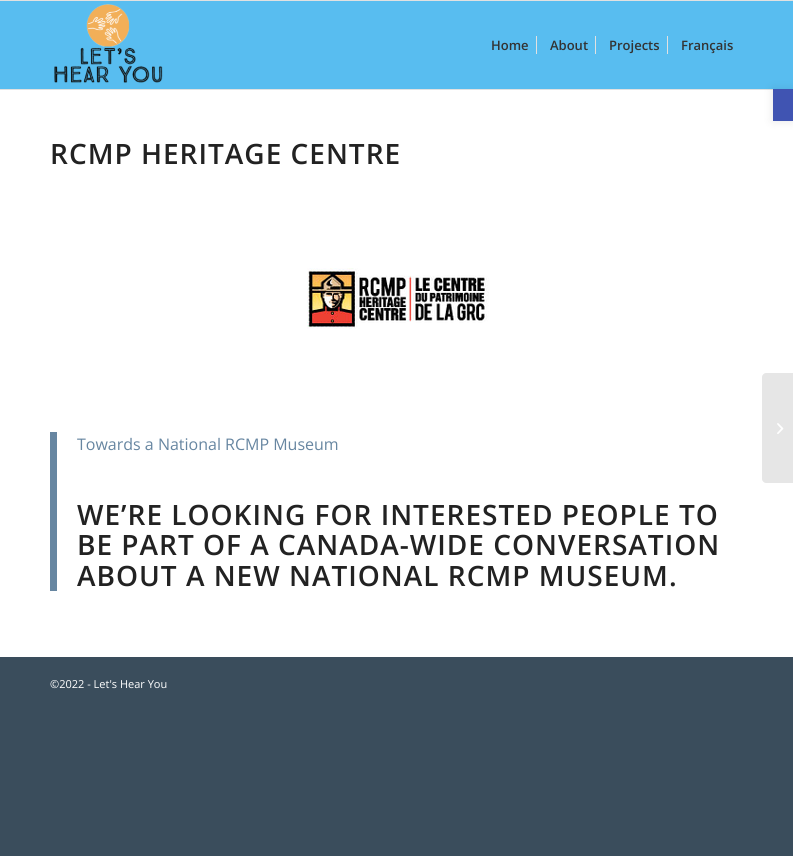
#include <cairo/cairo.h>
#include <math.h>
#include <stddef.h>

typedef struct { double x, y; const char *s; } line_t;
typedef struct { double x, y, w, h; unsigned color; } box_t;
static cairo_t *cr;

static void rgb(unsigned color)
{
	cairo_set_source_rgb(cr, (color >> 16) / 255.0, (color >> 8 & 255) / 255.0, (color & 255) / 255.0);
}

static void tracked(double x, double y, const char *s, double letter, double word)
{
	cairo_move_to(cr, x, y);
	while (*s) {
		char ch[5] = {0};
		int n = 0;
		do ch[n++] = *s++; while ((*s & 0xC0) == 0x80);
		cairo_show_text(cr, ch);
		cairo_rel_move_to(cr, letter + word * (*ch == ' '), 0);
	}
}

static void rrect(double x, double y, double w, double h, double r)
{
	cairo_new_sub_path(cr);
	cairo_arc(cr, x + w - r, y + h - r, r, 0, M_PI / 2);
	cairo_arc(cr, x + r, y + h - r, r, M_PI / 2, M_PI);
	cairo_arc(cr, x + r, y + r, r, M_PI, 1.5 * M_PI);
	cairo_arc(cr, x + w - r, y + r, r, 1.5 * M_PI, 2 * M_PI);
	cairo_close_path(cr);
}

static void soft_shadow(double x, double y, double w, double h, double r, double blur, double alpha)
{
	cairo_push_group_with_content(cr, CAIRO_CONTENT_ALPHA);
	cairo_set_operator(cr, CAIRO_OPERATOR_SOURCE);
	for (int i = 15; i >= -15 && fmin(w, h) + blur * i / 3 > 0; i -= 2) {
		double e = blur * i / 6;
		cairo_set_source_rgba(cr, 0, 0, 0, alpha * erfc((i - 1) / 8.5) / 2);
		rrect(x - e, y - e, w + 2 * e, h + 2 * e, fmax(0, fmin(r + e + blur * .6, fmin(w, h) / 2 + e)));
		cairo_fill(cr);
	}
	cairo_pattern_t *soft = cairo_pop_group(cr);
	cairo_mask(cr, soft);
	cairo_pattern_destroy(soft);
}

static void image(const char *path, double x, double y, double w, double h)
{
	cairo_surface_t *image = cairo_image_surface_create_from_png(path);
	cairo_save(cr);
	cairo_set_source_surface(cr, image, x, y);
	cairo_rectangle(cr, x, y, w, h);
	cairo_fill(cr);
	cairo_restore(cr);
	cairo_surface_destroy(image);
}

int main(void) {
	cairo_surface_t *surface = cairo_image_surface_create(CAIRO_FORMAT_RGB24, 793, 856);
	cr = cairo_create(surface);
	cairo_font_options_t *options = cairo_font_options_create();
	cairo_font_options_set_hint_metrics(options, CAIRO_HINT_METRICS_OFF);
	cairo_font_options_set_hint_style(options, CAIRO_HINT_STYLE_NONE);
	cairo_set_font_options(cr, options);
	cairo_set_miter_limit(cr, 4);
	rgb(0x3a4d5c);
	cairo_paint(cr);
	{
		static const box_t items[] = {
			{0, 1, 793, 88, 0x58bdf0},
			{0, 0, 793, 1, 0xe1e1e1},
			{0, 89, 773, 1, 0xe1e1e1},
		};
		for (size_t i = 0; i < sizeof items / sizeof *items; i++) {
			rgb(items[i].color);
			cairo_rectangle(cr, items[i].x, items[i].y, items[i].w, items[i].h);
			cairo_fill(cr);
		}
	}
	image("img/1.png", 54, 4, 109, 79);
	{
		static const box_t items[] = {
			{536, 36, 1, 18, 0xe1e1e1},
			{595, 36, 1, 18, 0xe1e1e1},
			{667, 36, 1, 18, 0xe1e1e1},
			{0, 90, 793, 567, 0xffffff},
		};
		for (size_t i = 0; i < sizeof items / sizeof *items; i++) {
			rgb(items[i].color);
			cairo_rectangle(cr, items[i].x, items[i].y, items[i].w, items[i].h);
			cairo_fill(cr);
		}
	}
	image("img/2.png", 307, 268, 182, 61);
	rgb(0x6786a1);
	cairo_rectangle(cr, 50, 432, 7, 159);
	cairo_fill(cr);
	rgb(0xe6e6e6);
	cairo_new_path(cr);
	cairo_move_to(cr, 766, 373);
	cairo_line_to(cr, 793, 373);
	cairo_line_to(cr, 793, 483);
	cairo_line_to(cr, 766, 483);
	cairo_curve_to(cr, 764, 483, 762, 481, 762, 479);
	cairo_line_to(cr, 762, 377);
	cairo_curve_to(cr, 762, 375, 764, 373, 766, 373);
	cairo_close_path(cr);
	cairo_fill(cr);
	image("img/3.png", 777, 423, 7, 11);
	rgb(0x000000);
	soft_shadow(773, 89, 20, 32, 0, 5, 0.1);
	rgb(0x4054b2);
	cairo_rectangle(cr, 773, 89, 20, 32);
	cairo_fill(cr);
	cairo_select_font_face(cr, "Open Sans SemiBold", CAIRO_FONT_SLANT_NORMAL, CAIRO_FONT_WEIGHT_NORMAL);
	cairo_set_font_size(cr, 13);
	rgb(0x333333);
	{
		static const line_t items[] = {
			{491, 50, "Home"},
			{550, 50, "About"},
			{609, 50, "Projects"},
			{681, 50, "Français"},
		};
		for (size_t i = 0; i < sizeof items / sizeof *items; i++) {
			cairo_move_to(cr, items[i].x, items[i].y);
			cairo_show_text(cr, items[i].s);
		}
	}
	cairo_set_font_size(cr, 28);
	rgb(0x222222);
	tracked(50, 164, "RCMP HERITAGE CENTRE", 1, 0);
	cairo_select_font_face(cr, "Open Sans", CAIRO_FONT_SLANT_NORMAL, CAIRO_FONT_WEIGHT_NORMAL);
	cairo_set_font_size(cr, 16);
	rgb(0x6786a1);
	cairo_move_to(cr, 77, 450);
	cairo_show_text(cr, "Towards a National RCMP Museum");
	cairo_select_font_face(cr, "Open Sans SemiBold", CAIRO_FONT_SLANT_NORMAL, CAIRO_FONT_WEIGHT_NORMAL);
	cairo_set_font_size(cr, 28);
	rgb(0x222222);
	{
		static const line_t items[] = {
			{77, 525, "WE’RE LOOKING FOR INTERESTED PEOPLE TO"},
			{77, 555, "BE PART OF A CANADA-WIDE CONVERSATION"},
			{77, 586, "ABOUT A NEW NATIONAL RCMP MUSEUM."},
		};
		for (size_t i = 0; i < sizeof items / sizeof *items; i++) {
			tracked(items[i].x, items[i].y, items[i].s, 1, 0);
		}
	}
	cairo_select_font_face(cr, "Open Sans", CAIRO_FONT_SLANT_NORMAL, CAIRO_FONT_WEIGHT_NORMAL);
	cairo_set_font_size(cr, 11);
	rgb(0xffffff);
	cairo_move_to(cr, 50, 688);
	cairo_show_text(cr, "©2022 - Let's Hear You");
	cairo_surface_write_to_png(surface, "page.png");
	cairo_font_options_destroy(options);
	cairo_destroy(cr);
	cairo_surface_destroy(surface);
	return 0;
}
